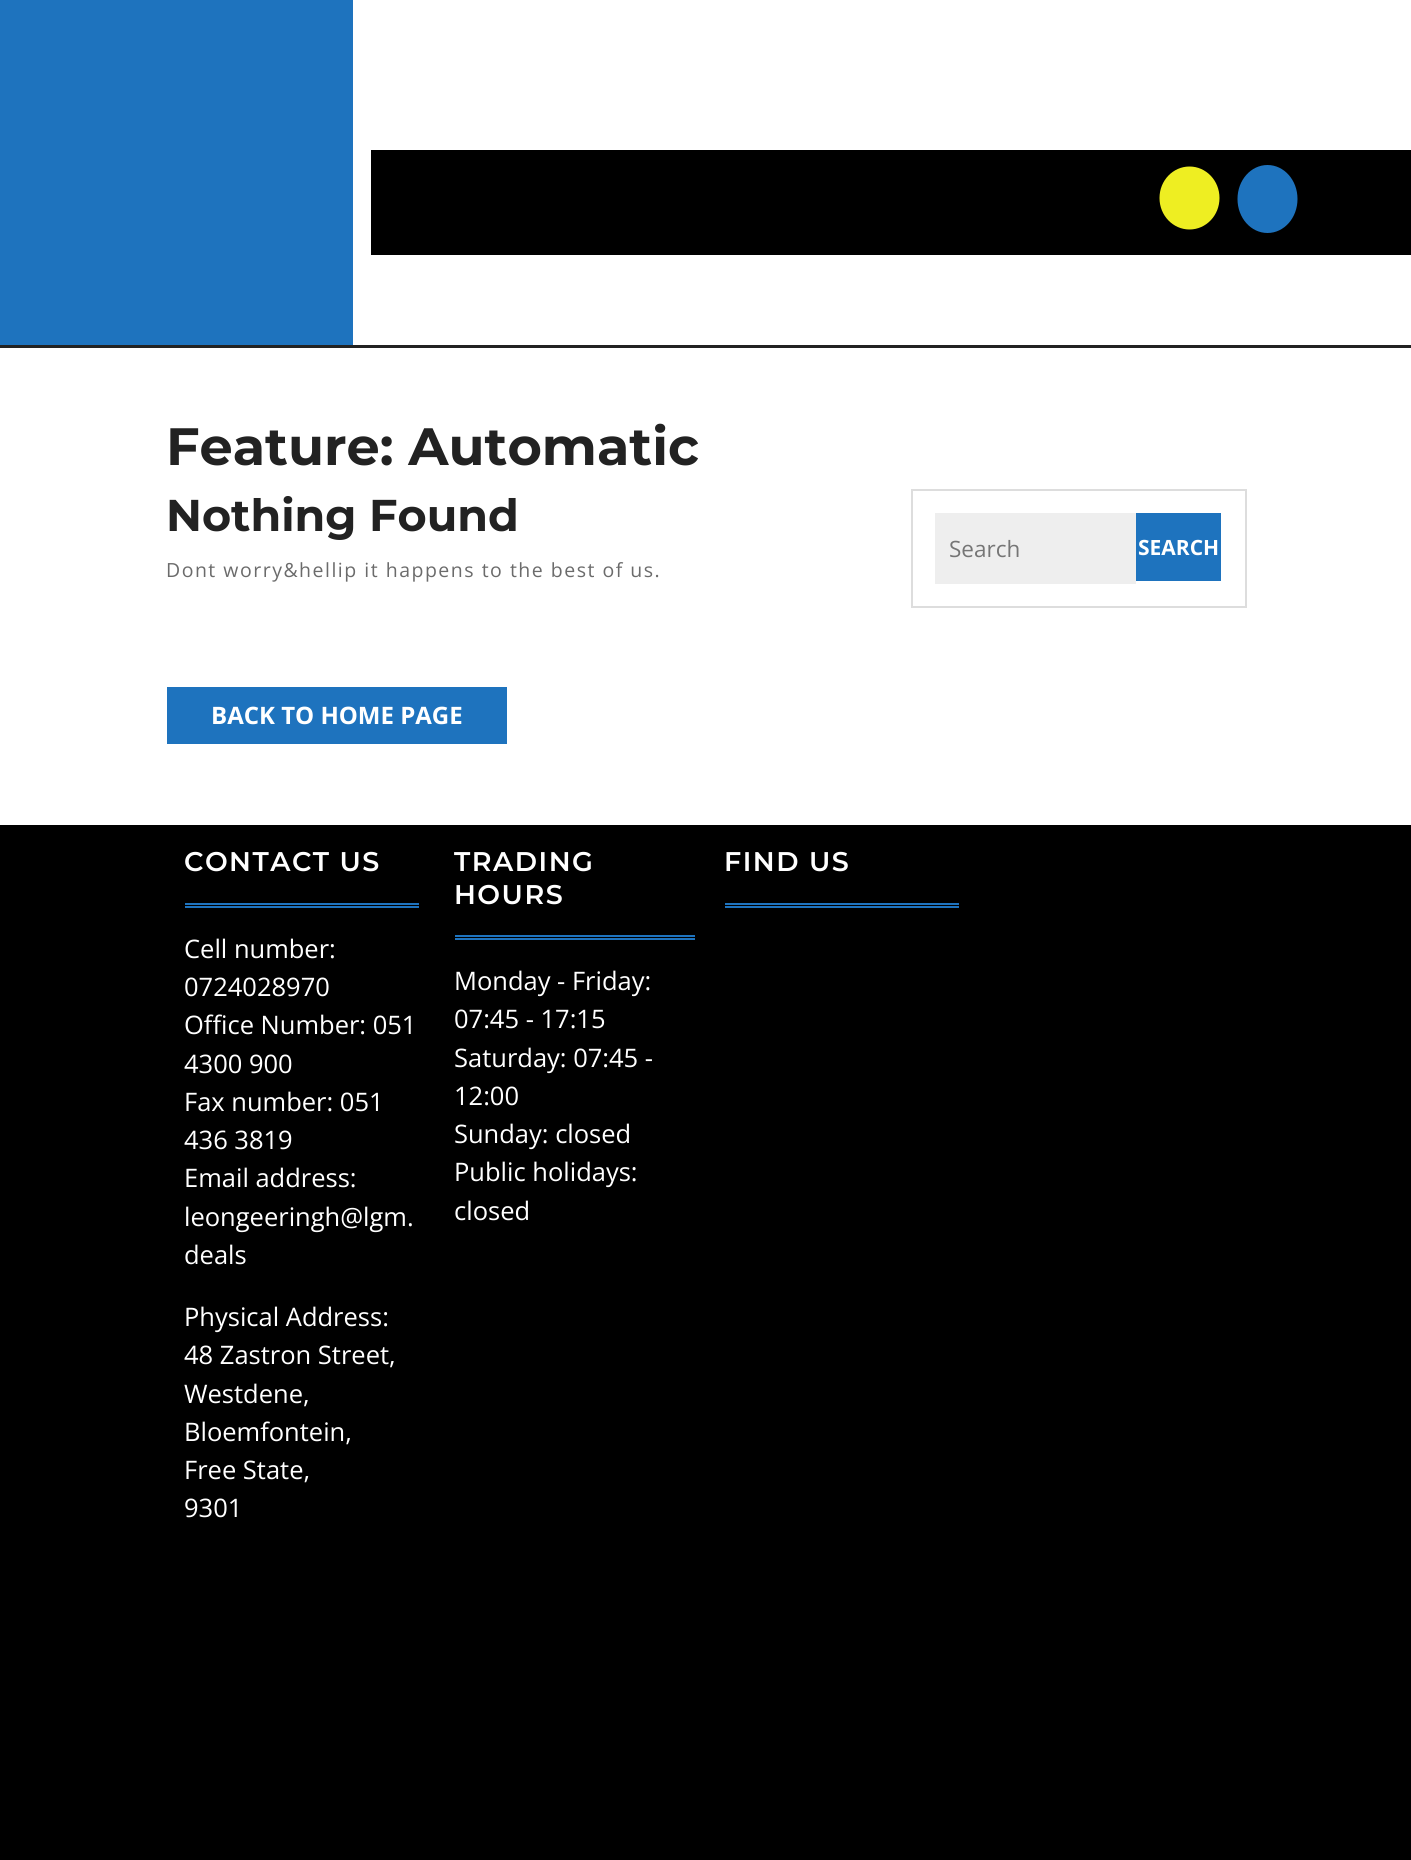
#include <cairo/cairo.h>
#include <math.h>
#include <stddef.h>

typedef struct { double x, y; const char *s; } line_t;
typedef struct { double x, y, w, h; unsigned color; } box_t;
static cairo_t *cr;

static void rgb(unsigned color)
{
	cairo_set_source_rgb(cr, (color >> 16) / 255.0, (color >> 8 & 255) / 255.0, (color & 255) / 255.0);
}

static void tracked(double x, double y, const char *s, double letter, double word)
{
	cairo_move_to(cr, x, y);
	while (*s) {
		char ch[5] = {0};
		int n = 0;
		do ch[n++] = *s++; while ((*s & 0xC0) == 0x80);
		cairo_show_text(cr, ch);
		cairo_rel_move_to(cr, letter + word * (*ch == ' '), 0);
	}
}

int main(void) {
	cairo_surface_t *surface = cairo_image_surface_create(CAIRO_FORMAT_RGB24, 1411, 1860);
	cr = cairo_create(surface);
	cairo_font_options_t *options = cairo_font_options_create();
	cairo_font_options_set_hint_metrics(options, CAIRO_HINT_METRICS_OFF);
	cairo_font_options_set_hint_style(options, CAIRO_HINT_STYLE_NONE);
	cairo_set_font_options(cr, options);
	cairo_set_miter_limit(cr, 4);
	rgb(0xffffff);
	cairo_paint(cr);
	{
		static const box_t items[] = {
			{0, 345, 1411, 3, 0x222222},
			{0, 0, 353, 345, 0x1e73be},
			{371, 150, 1040, 105, 0x000000},
		};
		for (size_t i = 0; i < sizeof items / sizeof *items; i++) {
			rgb(items[i].color);
			cairo_rectangle(cr, items[i].x, items[i].y, items[i].w, items[i].h);
			cairo_fill(cr);
		}
	}
	rgb(0xeeee22);
	cairo_new_path(cr);
	cairo_move_to(cr, 1189.5, 166.5);
	cairo_curve_to(cr, 1206, 166.5, 1219.5, 180.5, 1219.5, 198);
	cairo_curve_to(cr, 1219.5, 215.5, 1206, 229.5, 1189.5, 229.5);
	cairo_curve_to(cr, 1173, 229.5, 1159.5, 215.5, 1159.5, 198);
	cairo_curve_to(cr, 1159.5, 180.5, 1173, 166.5, 1189.5, 166.5);
	cairo_close_path(cr);
	cairo_fill(cr);
	rgb(0x1e73be);
	cairo_new_path(cr);
	cairo_move_to(cr, 1267.5, 165);
	cairo_curve_to(cr, 1284, 165, 1297.5, 180, 1297.5, 199);
	cairo_curve_to(cr, 1297.5, 218, 1284, 233, 1267.5, 233);
	cairo_curve_to(cr, 1251, 233, 1237.5, 218, 1237.5, 199);
	cairo_curve_to(cr, 1237.5, 180, 1251, 165, 1267.5, 165);
	cairo_close_path(cr);
	cairo_fill(cr);
	cairo_rectangle(cr, 167, 687, 340, 57);
	cairo_fill(cr);
	cairo_rectangle(cr, 912, 490, 334, 117);
	rgb(0xdddddd);
	cairo_stroke(cr);
	{
		static const box_t items[] = {
			{935, 513, 201, 71, 0xeeeeee},
			{1136, 513, 85, 68, 0x1e73be},
			{0, 825, 1411, 1035, 0x000000},
			{185, 903, 234, 2, 0x1e73be},
			{185, 906, 234, 2, 0x1e73be},
			{455, 935, 240, 2, 0x1e73be},
			{455, 938, 240, 2, 0x1e73be},
			{725, 903, 234, 2, 0x1e73be},
			{725, 906, 234, 2, 0x1e73be},
		};
		for (size_t i = 0; i < sizeof items / sizeof *items; i++) {
			rgb(items[i].color);
			cairo_rectangle(cr, items[i].x, items[i].y, items[i].w, items[i].h);
			cairo_fill(cr);
		}
	}
	cairo_select_font_face(cr, "Montserrat", CAIRO_FONT_SLANT_NORMAL, CAIRO_FONT_WEIGHT_BOLD);
	cairo_set_font_size(cr, 52.5);
	rgb(0x222222);
	cairo_move_to(cr, 166, 465);
	cairo_show_text(cr, "Feature: Automatic");
	cairo_set_font_size(cr, 44.5);
	cairo_move_to(cr, 166, 531);
	cairo_show_text(cr, "Nothing Found");
	cairo_select_font_face(cr, "Open Sans", CAIRO_FONT_SLANT_NORMAL, CAIRO_FONT_WEIGHT_NORMAL);
	cairo_set_font_size(cr, 19.5);
	rgb(0x6b6b6b);
	tracked(166, 577, "Dont worry&hellip it happens to the best of us.", 1.5, 0);
	cairo_select_font_face(cr, "Open Sans", CAIRO_FONT_SLANT_NORMAL, CAIRO_FONT_WEIGHT_BOLD);
	cairo_set_font_size(cr, 24);
	rgb(0xffffff);
	cairo_move_to(cr, 211, 724);
	cairo_show_text(cr, "BACK TO HOME PAGE");
	cairo_select_font_face(cr, "Open Sans", CAIRO_FONT_SLANT_NORMAL, CAIRO_FONT_WEIGHT_NORMAL);
	cairo_set_font_size(cr, 22.5);
	rgb(0x757575);
	cairo_move_to(cr, 949, 557);
	cairo_show_text(cr, "Search");
	cairo_select_font_face(cr, "Open Sans", CAIRO_FONT_SLANT_NORMAL, CAIRO_FONT_WEIGHT_BOLD);
	cairo_set_font_size(cr, 21);
	rgb(0xffffff);
	cairo_move_to(cr, 1138, 555);
	cairo_show_text(cr, "SEARCH");
	cairo_select_font_face(cr, "Montserrat SemiBold", CAIRO_FONT_SLANT_NORMAL, CAIRO_FONT_WEIGHT_NORMAL);
	cairo_set_font_size(cr, 27);
	tracked(184, 871, "CONTACT US", 1.5, 0);
	cairo_select_font_face(cr, "Open Sans", CAIRO_FONT_SLANT_NORMAL, CAIRO_FONT_WEIGHT_NORMAL);
	cairo_set_font_size(cr, 25.5);
	{
		static const line_t items[] = {
			{184, 958, "Cell number:"},
			{184, 996, "0724028970"},
			{184, 1034, "Office Number: 051"},
			{184, 1073, "4300 900"},
			{184, 1111, "Fax number: 051"},
			{184, 1149, "436 3819"},
			{184, 1187, "Email address:"},
			{184, 1226, "leongeeringh@lgm."},
			{184, 1264, "deals"},
			{184, 1326, "Physical Address:"},
			{184, 1364, "48 Zastron Street,"},
			{184, 1403, "Westdene,"},
			{184, 1441, "Bloemfontein,"},
			{184, 1479, "Free State,"},
			{184, 1517, "9301"},
		};
		for (size_t i = 0; i < sizeof items / sizeof *items; i++) {
			cairo_move_to(cr, items[i].x, items[i].y);
			cairo_show_text(cr, items[i].s);
		}
	}
	cairo_select_font_face(cr, "Montserrat SemiBold", CAIRO_FONT_SLANT_NORMAL, CAIRO_FONT_WEIGHT_NORMAL);
	cairo_set_font_size(cr, 27);
	tracked(454, 871, "TRADING", 1.5, 0);
	tracked(454, 904, "HOURS", 1.5, 0);
	cairo_select_font_face(cr, "Open Sans", CAIRO_FONT_SLANT_NORMAL, CAIRO_FONT_WEIGHT_NORMAL);
	cairo_set_font_size(cr, 25.5);
	{
		static const line_t items[] = {
			{454, 990, "Monday - Friday:"},
			{454, 1028, "07:45 - 17:15"},
			{454, 1067, "Saturday: 07:45 -"},
			{454, 1105, "12:00"},
			{454, 1143, "Sunday: closed"},
			{454, 1181, "Public holidays:"},
			{454, 1220, "closed"},
		};
		for (size_t i = 0; i < sizeof items / sizeof *items; i++) {
			cairo_move_to(cr, items[i].x, items[i].y);
			cairo_show_text(cr, items[i].s);
		}
	}
	cairo_select_font_face(cr, "Montserrat SemiBold", CAIRO_FONT_SLANT_NORMAL, CAIRO_FONT_WEIGHT_NORMAL);
	cairo_set_font_size(cr, 27);
	tracked(724, 871, "FIND US", 1.5, 0);
	cairo_surface_write_to_png(surface, "page.png");
	cairo_font_options_destroy(options);
	cairo_destroy(cr);
	cairo_surface_destroy(surface);
	return 0;
}
